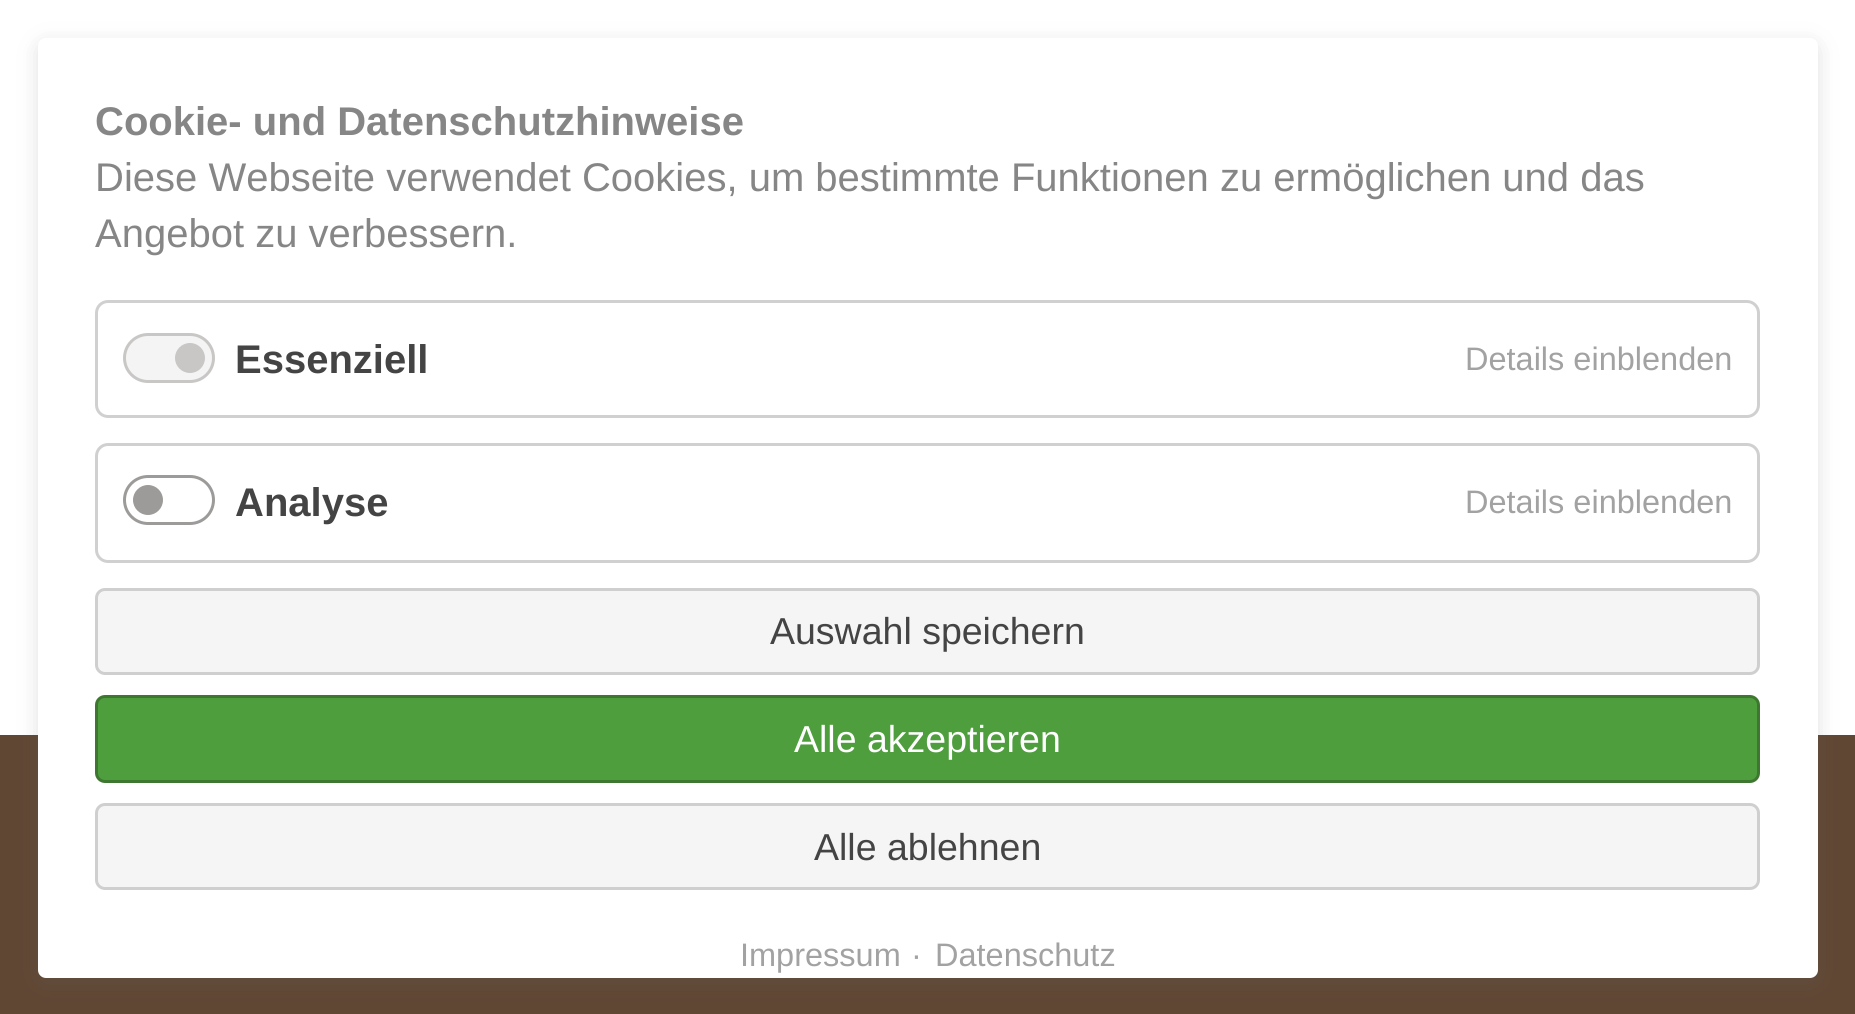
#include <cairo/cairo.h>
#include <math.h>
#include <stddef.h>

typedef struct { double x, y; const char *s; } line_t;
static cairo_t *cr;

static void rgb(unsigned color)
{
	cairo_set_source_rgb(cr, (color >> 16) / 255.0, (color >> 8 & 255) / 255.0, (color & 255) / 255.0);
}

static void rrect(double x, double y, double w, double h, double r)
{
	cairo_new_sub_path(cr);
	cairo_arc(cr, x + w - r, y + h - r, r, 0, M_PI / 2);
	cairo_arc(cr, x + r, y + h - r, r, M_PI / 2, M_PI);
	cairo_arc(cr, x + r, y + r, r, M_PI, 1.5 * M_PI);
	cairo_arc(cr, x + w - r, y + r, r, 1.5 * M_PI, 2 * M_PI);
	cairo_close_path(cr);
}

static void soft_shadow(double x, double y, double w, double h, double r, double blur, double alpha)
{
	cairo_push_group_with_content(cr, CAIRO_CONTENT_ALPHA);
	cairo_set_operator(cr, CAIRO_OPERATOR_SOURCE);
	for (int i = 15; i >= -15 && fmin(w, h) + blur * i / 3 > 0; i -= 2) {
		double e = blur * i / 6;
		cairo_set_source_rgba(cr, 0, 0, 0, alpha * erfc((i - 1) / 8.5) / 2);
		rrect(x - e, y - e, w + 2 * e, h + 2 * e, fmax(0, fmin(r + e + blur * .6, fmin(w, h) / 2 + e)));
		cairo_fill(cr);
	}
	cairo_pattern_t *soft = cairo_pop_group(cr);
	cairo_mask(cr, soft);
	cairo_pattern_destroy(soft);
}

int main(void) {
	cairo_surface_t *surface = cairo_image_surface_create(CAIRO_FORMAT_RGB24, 1855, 1014);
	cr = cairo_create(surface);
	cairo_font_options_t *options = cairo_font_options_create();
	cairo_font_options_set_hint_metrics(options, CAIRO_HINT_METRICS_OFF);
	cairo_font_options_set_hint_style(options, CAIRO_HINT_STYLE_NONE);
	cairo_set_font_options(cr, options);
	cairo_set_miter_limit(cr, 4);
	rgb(0xffffff);
	cairo_paint(cr);
	rgb(0x604734);
	cairo_rectangle(cr, 0, 735, 1855, 279);
	cairo_fill(cr);
	rgb(0x636363);
	soft_shadow(38, 43, 1780, 940, 8, 10, 0.2);
	rgb(0xffffff);
	rrect(38, 38, 1780, 940, 8);
	cairo_fill(cr);
	rrect(96.5, 301.5, 1662, 115, 11.5);
	rgb(0xd0d0d0);
	cairo_set_line_width(cr, 3);
	cairo_stroke(cr);
	rgb(0xf4f4f4);
	rrect(124.5, 334.5, 89, 47, 23.5);
	cairo_fill_preserve(cr);
	rgb(0xc8c7c5);
	cairo_stroke(cr);
	cairo_arc(cr, 190, 358, 15, 0, 2 * M_PI);
	cairo_fill(cr);
	rrect(96.5, 444.5, 1662, 117, 11.5);
	rgb(0xd0d0d0);
	cairo_stroke(cr);
	rrect(124.5, 476.5, 89, 47, 23.5);
	rgb(0x9c9b99);
	cairo_stroke(cr);
	cairo_arc(cr, 148, 500, 15, 0, 2 * M_PI);
	cairo_fill(cr);
	rgb(0xf5f5f5);
	rrect(96.5, 589.5, 1662, 84, 8.5);
	cairo_fill_preserve(cr);
	rgb(0xcfcfcf);
	cairo_stroke(cr);
	rgb(0x4e9e3e);
	rrect(96.5, 696.5, 1662, 85, 8.5);
	cairo_fill_preserve(cr);
	rgb(0x3e7830);
	cairo_stroke(cr);
	rgb(0xf5f5f5);
	rrect(96.5, 804.5, 1662, 84, 8.5);
	cairo_fill_preserve(cr);
	rgb(0xcfcfcf);
	cairo_stroke(cr);
	cairo_select_font_face(cr, "Liberation Sans", CAIRO_FONT_SLANT_NORMAL, CAIRO_FONT_WEIGHT_BOLD);
	cairo_set_font_size(cr, 40);
	rgb(0x868686);
	cairo_move_to(cr, 95, 135);
	cairo_show_text(cr, "Cookie- und Datenschutzhinweise");
	cairo_select_font_face(cr, "Liberation Sans", CAIRO_FONT_SLANT_NORMAL, CAIRO_FONT_WEIGHT_NORMAL);
	cairo_move_to(cr, 95, 191);
	cairo_show_text(cr, "Diese Webseite verwendet Cookies, um bestimmte Funktionen zu ermöglichen und das");
	cairo_move_to(cr, 95, 247);
	cairo_show_text(cr, "Angebot zu verbessern.");
	cairo_select_font_face(cr, "Liberation Sans", CAIRO_FONT_SLANT_NORMAL, CAIRO_FONT_WEIGHT_BOLD);
	rgb(0x444444);
	cairo_move_to(cr, 235, 373);
	cairo_show_text(cr, "Essenziell");
	cairo_select_font_face(cr, "Liberation Sans", CAIRO_FONT_SLANT_NORMAL, CAIRO_FONT_WEIGHT_NORMAL);
	cairo_set_font_size(cr, 32.5);
	rgb(0xa2a2a2);
	cairo_move_to(cr, 1465, 370);
	cairo_show_text(cr, "Details einblenden");
	cairo_select_font_face(cr, "Liberation Sans", CAIRO_FONT_SLANT_NORMAL, CAIRO_FONT_WEIGHT_BOLD);
	cairo_set_font_size(cr, 40);
	rgb(0x444444);
	cairo_move_to(cr, 235, 516);
	cairo_show_text(cr, "Analyse");
	cairo_select_font_face(cr, "Liberation Sans", CAIRO_FONT_SLANT_NORMAL, CAIRO_FONT_WEIGHT_NORMAL);
	cairo_set_font_size(cr, 32.5);
	rgb(0xa2a2a2);
	cairo_move_to(cr, 1465, 513);
	cairo_show_text(cr, "Details einblenden");
	cairo_set_font_size(cr, 37.5);
	rgb(0x444444);
	cairo_move_to(cr, 770, 644);
	cairo_show_text(cr, "Auswahl speichern");
	rgb(0xffffff);
	cairo_move_to(cr, 794, 752);
	cairo_show_text(cr, "Alle akzeptieren");
	rgb(0x444444);
	cairo_move_to(cr, 814, 860);
	cairo_show_text(cr, "Alle ablehnen");
	cairo_set_font_size(cr, 32.5);
	rgb(0xa2a2a2);
	{
		static const line_t items[] = {
			{740, 966, "Impressum"},
			{911, 966, "·"},
			{935, 966, "Datenschutz"},
		};
		for (size_t i = 0; i < sizeof items / sizeof *items; i++) {
			cairo_move_to(cr, items[i].x, items[i].y);
			cairo_show_text(cr, items[i].s);
		}
	}
	cairo_surface_write_to_png(surface, "page.png");
	cairo_font_options_destroy(options);
	cairo_destroy(cr);
	cairo_surface_destroy(surface);
	return 0;
}
